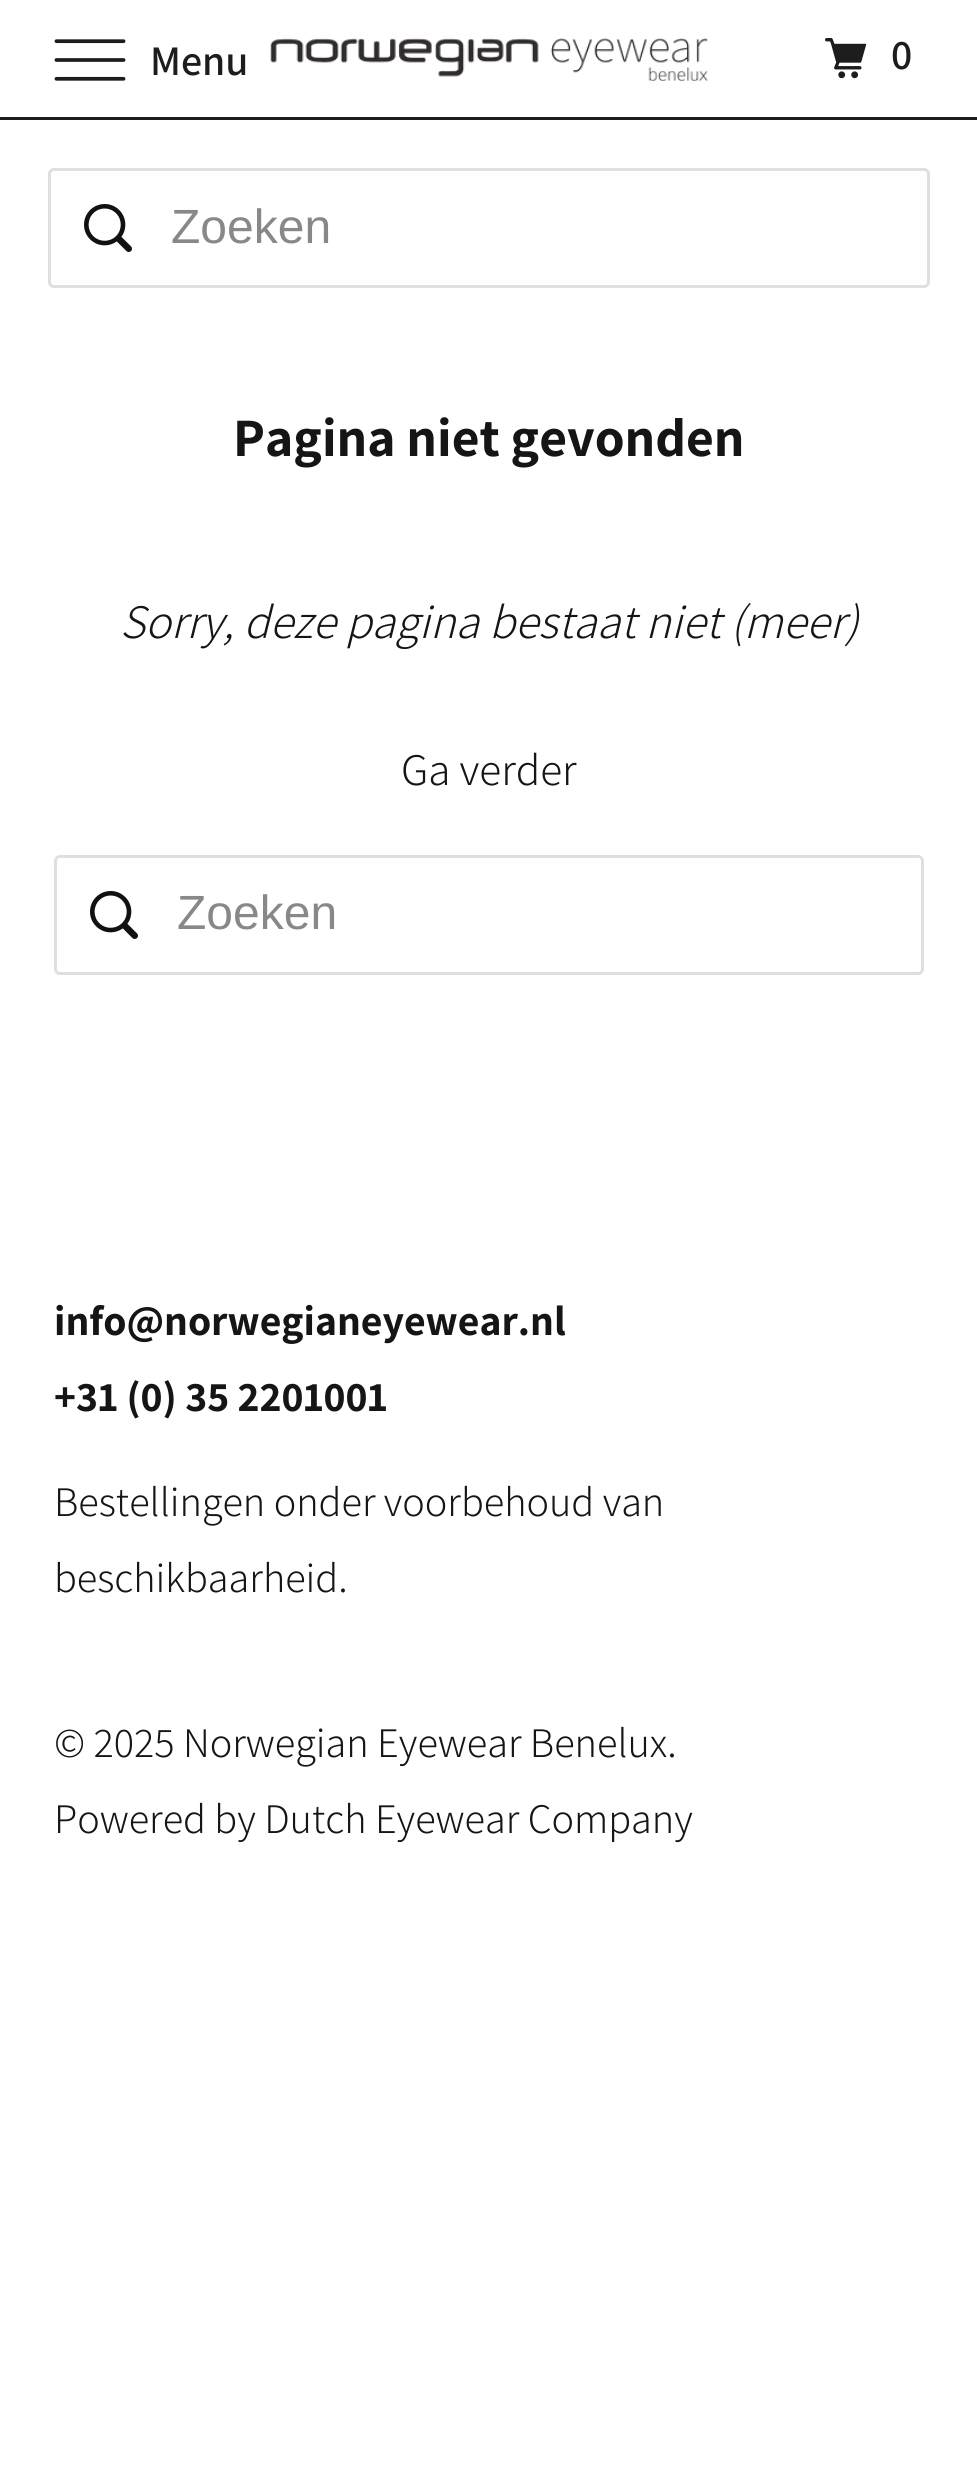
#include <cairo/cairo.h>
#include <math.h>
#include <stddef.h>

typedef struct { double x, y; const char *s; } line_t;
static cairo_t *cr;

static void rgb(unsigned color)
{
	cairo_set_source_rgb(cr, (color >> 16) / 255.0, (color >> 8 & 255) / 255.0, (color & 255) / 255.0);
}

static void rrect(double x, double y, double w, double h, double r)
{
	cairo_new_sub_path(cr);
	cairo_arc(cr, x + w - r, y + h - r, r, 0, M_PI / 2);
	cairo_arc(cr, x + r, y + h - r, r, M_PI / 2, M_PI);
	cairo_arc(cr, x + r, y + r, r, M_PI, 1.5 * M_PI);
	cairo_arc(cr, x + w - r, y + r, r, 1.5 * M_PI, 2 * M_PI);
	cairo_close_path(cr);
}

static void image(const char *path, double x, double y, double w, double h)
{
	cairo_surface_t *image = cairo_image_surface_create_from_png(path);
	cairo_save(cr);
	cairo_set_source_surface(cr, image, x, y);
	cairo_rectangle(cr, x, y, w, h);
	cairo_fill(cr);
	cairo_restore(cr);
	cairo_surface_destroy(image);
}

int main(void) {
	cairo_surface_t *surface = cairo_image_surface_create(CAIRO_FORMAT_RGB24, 977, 2487);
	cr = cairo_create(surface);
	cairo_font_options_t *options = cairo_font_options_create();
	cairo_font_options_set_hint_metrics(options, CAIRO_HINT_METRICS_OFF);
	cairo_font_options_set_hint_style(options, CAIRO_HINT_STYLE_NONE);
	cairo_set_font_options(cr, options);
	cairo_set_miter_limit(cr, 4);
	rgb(0xffffff);
	cairo_paint(cr);
	rgb(0x1d1d1d);
	cairo_rectangle(cr, 0, 117, 977, 3);
	cairo_fill(cr);
	image("img/1.png", 54, 39, 72, 42);
	image("img/2.png", 270, 38, 438, 43);
	image("img/3.png", 825, 38, 42, 41);
	rrect(49.5, 169.5, 879, 117, 4.5);
	rgb(0xdfdfdf);
	cairo_set_line_width(cr, 3);
	cairo_stroke(cr);
	image("img/4.png", 84, 204, 48, 48);
	rrect(55.5, 856.5, 867, 117, 4.5);
	cairo_stroke(cr);
	image("img/4.png", 90, 891, 48, 48);
	cairo_select_font_face(cr, "Assistant SemiBold", CAIRO_FONT_SLANT_NORMAL, CAIRO_FONT_WEIGHT_NORMAL);
	cairo_set_font_size(cr, 42);
	rgb(0x1d1d1d);
	cairo_move_to(cr, 150, 75);
	cairo_show_text(cr, "Menu");
	cairo_move_to(cr, 891, 69);
	cairo_show_text(cr, "0");
	cairo_select_font_face(cr, "Liberation Sans", CAIRO_FONT_SLANT_NORMAL, CAIRO_FONT_WEIGHT_NORMAL);
	cairo_set_font_size(cr, 48);
	rgb(0x888888);
	cairo_move_to(cr, 171, 243);
	cairo_show_text(cr, "Zoeken");
	cairo_select_font_face(cr, "Assistant", CAIRO_FONT_SLANT_NORMAL, CAIRO_FONT_WEIGHT_BOLD);
	cairo_set_font_size(cr, 54);
	rgb(0x161515);
	cairo_move_to(cr, 233, 456);
	cairo_show_text(cr, "Pagina niet gevonden");
	cairo_select_font_face(cr, "Assistant Light", CAIRO_FONT_SLANT_ITALIC, CAIRO_FONT_WEIGHT_NORMAL);
	cairo_set_font_size(cr, 48);
	cairo_move_to(cr, 120, 638);
	cairo_show_text(cr, "Sorry, deze pagina bestaat niet (meer)");
	cairo_select_font_face(cr, "Assistant Light", CAIRO_FONT_SLANT_NORMAL, CAIRO_FONT_WEIGHT_NORMAL);
	cairo_set_font_size(cr, 45);
	cairo_move_to(cr, 401, 785);
	cairo_show_text(cr, "Ga verder");
	cairo_select_font_face(cr, "Liberation Sans", CAIRO_FONT_SLANT_NORMAL, CAIRO_FONT_WEIGHT_NORMAL);
	cairo_set_font_size(cr, 48);
	rgb(0x888888);
	cairo_move_to(cr, 177, 929);
	cairo_show_text(cr, "Zoeken");
	cairo_select_font_face(cr, "Assistant", CAIRO_FONT_SLANT_NORMAL, CAIRO_FONT_WEIGHT_BOLD);
	cairo_set_font_size(cr, 42);
	rgb(0x161515);
	cairo_move_to(cr, 54, 1335);
	cairo_show_text(cr, "info@norwegianeyewear.nl");
	cairo_move_to(cr, 54, 1411);
	cairo_show_text(cr, "+31 (0) 35 2201001");
	cairo_select_font_face(cr, "Assistant Light", CAIRO_FONT_SLANT_NORMAL, CAIRO_FONT_WEIGHT_NORMAL);
	{
		static const line_t items[] = {
			{54, 1516, "Bestellingen onder voorbehoud van"},
			{54, 1592, "beschikbaarheid."},
			{54, 1757, "© 2025 Norwegian Eyewear Benelux."},
			{54, 1833, "Powered by Dutch Eyewear Company"},
		};
		for (size_t i = 0; i < sizeof items / sizeof *items; i++) {
			cairo_move_to(cr, items[i].x, items[i].y);
			cairo_show_text(cr, items[i].s);
		}
	}
	cairo_surface_write_to_png(surface, "page.png");
	cairo_font_options_destroy(options);
	cairo_destroy(cr);
	cairo_surface_destroy(surface);
	return 0;
}
